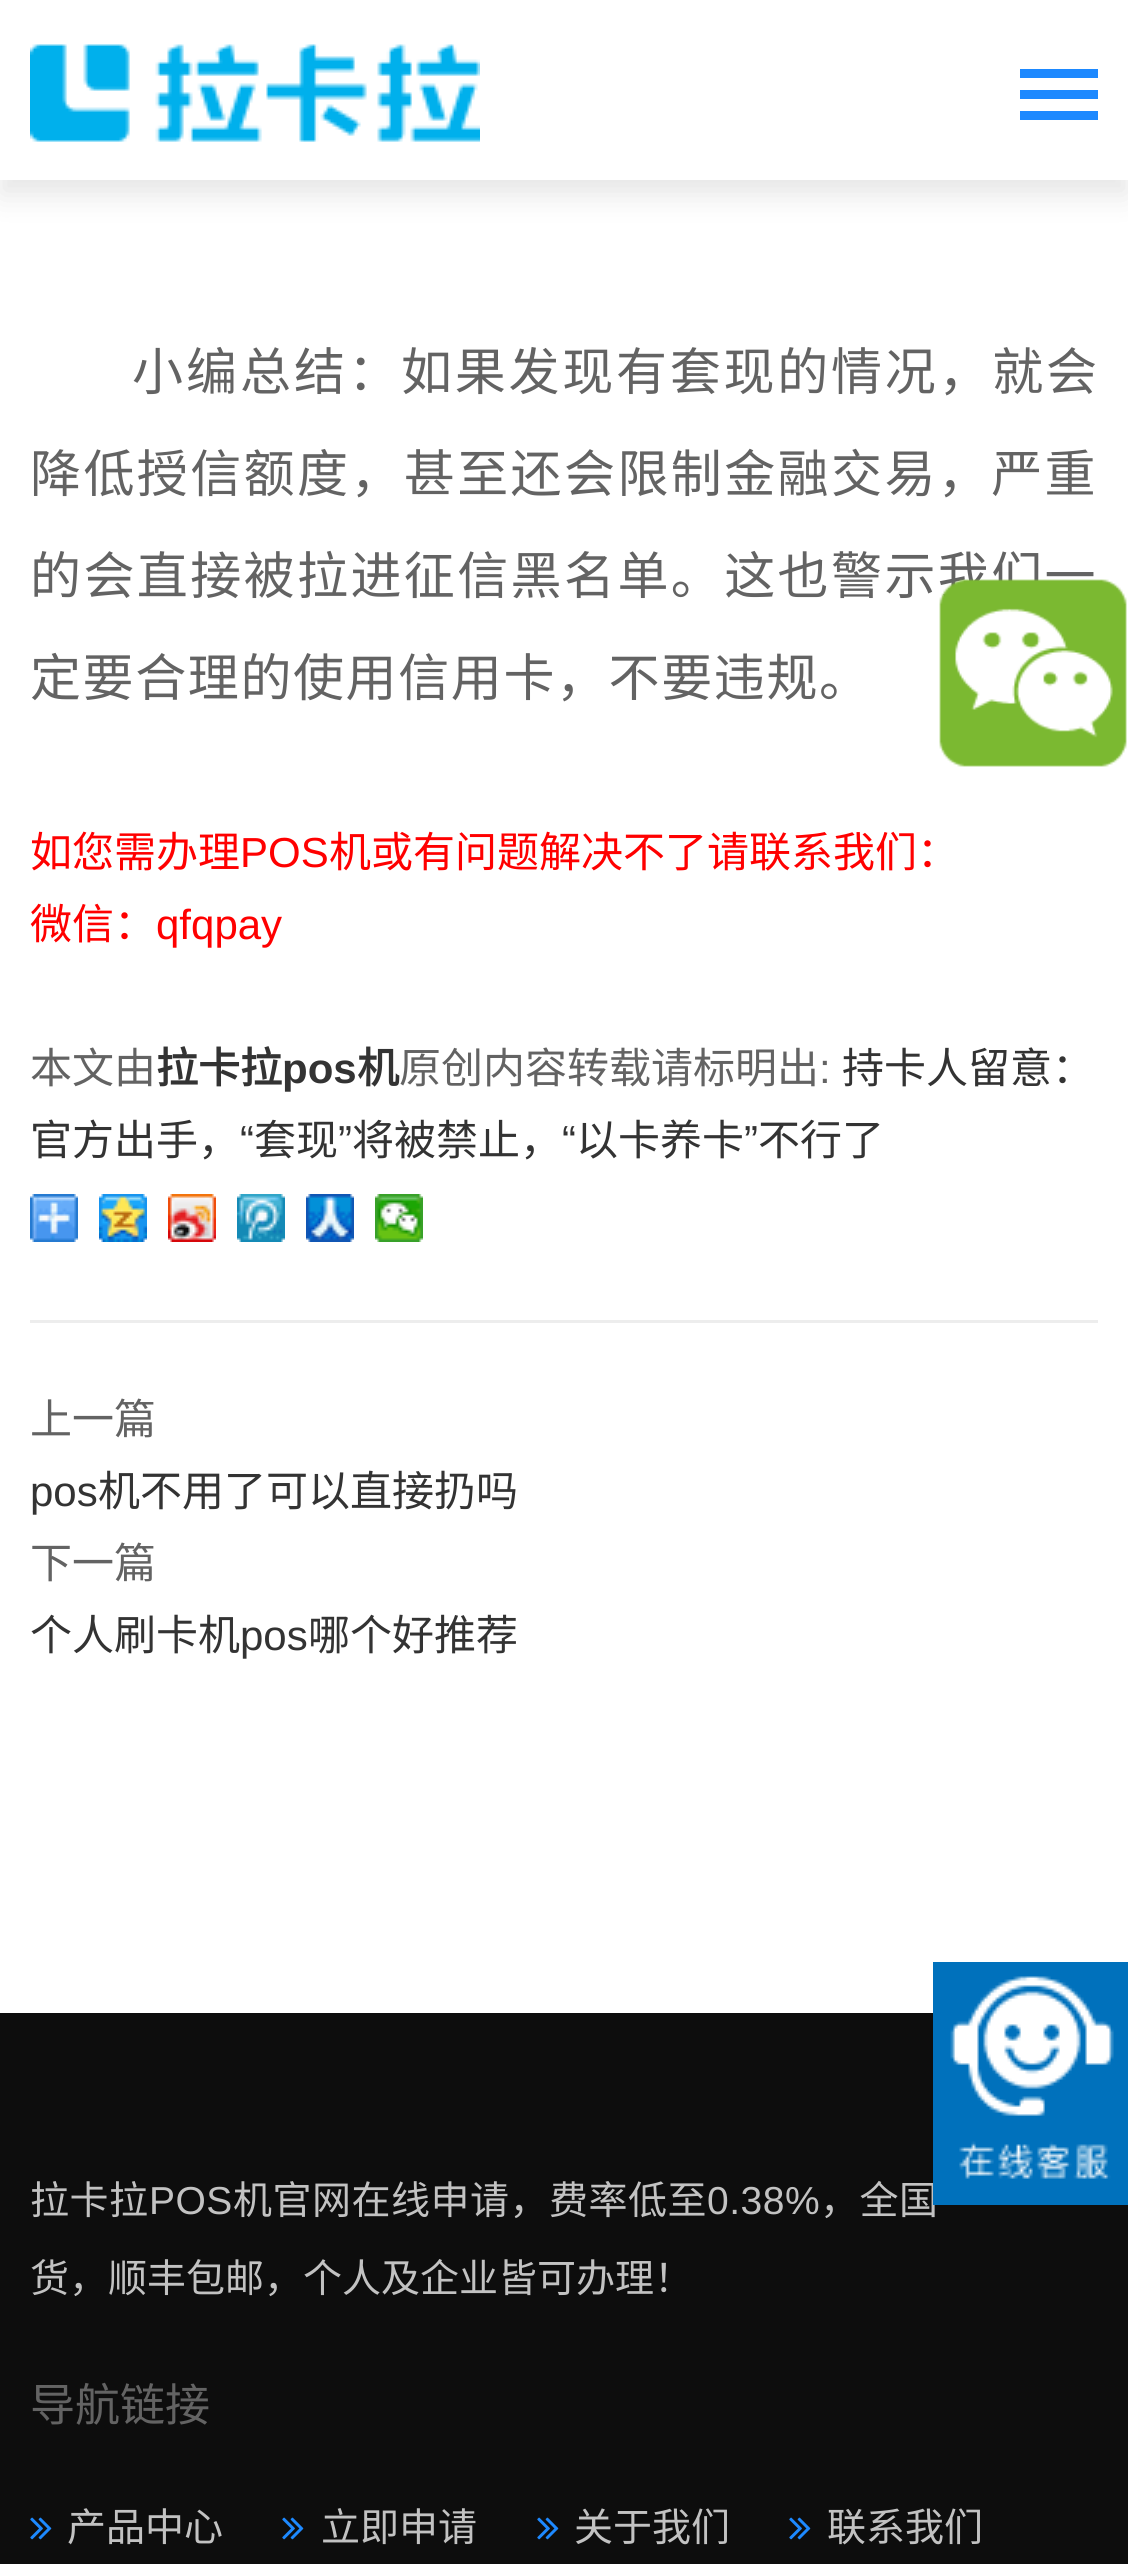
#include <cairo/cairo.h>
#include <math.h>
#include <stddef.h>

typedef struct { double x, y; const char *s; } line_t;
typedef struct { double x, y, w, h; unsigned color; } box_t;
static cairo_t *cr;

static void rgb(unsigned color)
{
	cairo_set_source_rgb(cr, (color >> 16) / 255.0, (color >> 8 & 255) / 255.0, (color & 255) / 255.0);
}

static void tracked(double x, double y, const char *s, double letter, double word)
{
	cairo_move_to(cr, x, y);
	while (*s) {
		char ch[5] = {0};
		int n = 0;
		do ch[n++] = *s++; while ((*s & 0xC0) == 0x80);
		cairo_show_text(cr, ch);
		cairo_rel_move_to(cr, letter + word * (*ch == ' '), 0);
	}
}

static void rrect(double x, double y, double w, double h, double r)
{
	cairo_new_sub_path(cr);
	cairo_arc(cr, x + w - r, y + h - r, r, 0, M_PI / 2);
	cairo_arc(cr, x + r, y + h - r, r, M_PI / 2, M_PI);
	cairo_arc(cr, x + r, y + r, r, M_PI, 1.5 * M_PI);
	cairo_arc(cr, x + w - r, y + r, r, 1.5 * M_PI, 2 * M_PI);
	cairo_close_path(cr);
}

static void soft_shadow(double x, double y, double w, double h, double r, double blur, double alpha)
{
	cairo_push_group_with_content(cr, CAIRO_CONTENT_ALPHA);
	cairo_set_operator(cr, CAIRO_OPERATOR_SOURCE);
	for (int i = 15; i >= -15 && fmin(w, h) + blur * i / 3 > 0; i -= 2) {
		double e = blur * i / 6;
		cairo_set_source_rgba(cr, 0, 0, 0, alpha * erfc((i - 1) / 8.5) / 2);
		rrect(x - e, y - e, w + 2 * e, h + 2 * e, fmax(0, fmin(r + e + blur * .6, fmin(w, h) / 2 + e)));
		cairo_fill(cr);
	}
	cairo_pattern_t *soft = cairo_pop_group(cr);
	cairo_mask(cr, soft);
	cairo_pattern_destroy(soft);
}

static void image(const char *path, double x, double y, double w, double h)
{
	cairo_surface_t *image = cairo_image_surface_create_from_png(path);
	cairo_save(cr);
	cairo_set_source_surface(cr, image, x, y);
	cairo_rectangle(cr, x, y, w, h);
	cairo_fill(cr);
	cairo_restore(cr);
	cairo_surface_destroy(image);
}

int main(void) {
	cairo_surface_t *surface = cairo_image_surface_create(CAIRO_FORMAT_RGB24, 1128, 2564);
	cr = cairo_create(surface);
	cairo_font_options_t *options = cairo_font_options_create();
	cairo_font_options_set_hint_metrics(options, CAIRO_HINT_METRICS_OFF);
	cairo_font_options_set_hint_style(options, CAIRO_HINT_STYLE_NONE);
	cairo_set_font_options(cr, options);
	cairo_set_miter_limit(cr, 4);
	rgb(0xffffff);
	cairo_paint(cr);
	rgb(0x000000);
	soft_shadow(0, 15, 1128, 180, 0, 15, 0.1);
	rgb(0xffffff);
	cairo_rectangle(cr, 0, 0, 1128, 180);
	cairo_fill(cr);
	image("img/1.png", 30, 44, 450, 98);
	{
		static const box_t items[] = {
			{1020, 69, 78, 9, 0x1d89ff},
			{1020, 90, 78, 9, 0x1d89ff},
			{1020, 111, 78, 9, 0x1d89ff},
			{30, 1320, 1068, 3, 0xededed},
		};
		for (size_t i = 0; i < sizeof items / sizeof *items; i++) {
			rgb(items[i].color);
			cairo_rectangle(cr, items[i].x, items[i].y, items[i].w, items[i].h);
			cairo_fill(cr);
		}
	}
	image("img/2.png", 30, 1194, 48, 48);
	image("img/3.png", 99, 1194, 48, 48);
	image("img/4.png", 168, 1194, 48, 48);
	image("img/5.png", 237, 1194, 48, 48);
	image("img/6.png", 306, 1194, 48, 48);
	image("img/7.png", 375, 1194, 48, 48);
	rgb(0x0d0d0d);
	cairo_rectangle(cr, 0, 2013, 1128, 551);
	cairo_fill(cr);
	image("img/9.png", 30, 2517, 22, 23);
	image("img/9.png", 282, 2517, 22, 23);
	image("img/9.png", 537, 2517, 22, 23);
	image("img/9.png", 789, 2517, 22, 23);
	cairo_select_font_face(cr, "Noto Sans CJK SC", CAIRO_FONT_SLANT_NORMAL, CAIRO_FONT_WEIGHT_NORMAL);
	cairo_set_font_size(cr, 51);
	rgb(0x636363);
	tracked(132, 390, "小编总结：", 3, 0);
	tracked(401, 390, "如果发现有套现的情况，就会", 2.75, 0);
	tracked(30, 492, "降低授信额度，甚至还会限制金融交易，严重", 2.4, 0);
	tracked(30, 594, "的会直接被拉进征信黑名单。这也警示我们一", 2.4, 0);
	tracked(30, 696, "定要合理的使用信用卡，不要违规。", 1.6, 0);
	cairo_set_font_size(cr, 42);
	rgb(0xff0000);
	cairo_move_to(cr, 30, 867);
	cairo_show_text(cr, "如您需办理");
	cairo_select_font_face(cr, "Liberation Sans", CAIRO_FONT_SLANT_NORMAL, CAIRO_FONT_WEIGHT_NORMAL);
	cairo_move_to(cr, 240, 867);
	cairo_show_text(cr, "POS");
	cairo_select_font_face(cr, "Noto Sans CJK SC", CAIRO_FONT_SLANT_NORMAL, CAIRO_FONT_WEIGHT_NORMAL);
	cairo_move_to(cr, 329, 867);
	cairo_show_text(cr, "机或有问题解决不了请联系我们：");
	cairo_move_to(cr, 30, 939);
	cairo_show_text(cr, "微信：");
	cairo_select_font_face(cr, "Liberation Sans", CAIRO_FONT_SLANT_NORMAL, CAIRO_FONT_WEIGHT_NORMAL);
	cairo_move_to(cr, 156, 939);
	cairo_show_text(cr, "qfqpay");
	cairo_select_font_face(cr, "Noto Sans CJK SC", CAIRO_FONT_SLANT_NORMAL, CAIRO_FONT_WEIGHT_NORMAL);
	rgb(0x636363);
	cairo_move_to(cr, 30, 1083);
	cairo_show_text(cr, "本文由");
	cairo_select_font_face(cr, "Noto Sans CJK SC", CAIRO_FONT_SLANT_NORMAL, CAIRO_FONT_WEIGHT_BOLD);
	rgb(0x333333);
	cairo_move_to(cr, 156, 1083);
	cairo_show_text(cr, "拉卡拉");
	cairo_select_font_face(cr, "Liberation Sans", CAIRO_FONT_SLANT_NORMAL, CAIRO_FONT_WEIGHT_BOLD);
	cairo_move_to(cr, 282, 1083);
	cairo_show_text(cr, "pos");
	cairo_select_font_face(cr, "Noto Sans CJK SC", CAIRO_FONT_SLANT_NORMAL, CAIRO_FONT_WEIGHT_BOLD);
	cairo_move_to(cr, 357, 1083);
	cairo_show_text(cr, "机");
	cairo_select_font_face(cr, "Noto Sans CJK SC", CAIRO_FONT_SLANT_NORMAL, CAIRO_FONT_WEIGHT_NORMAL);
	rgb(0x636363);
	cairo_move_to(cr, 399, 1083);
	cairo_show_text(cr, "原创内容转载请标明出");
	cairo_select_font_face(cr, "Liberation Sans", CAIRO_FONT_SLANT_NORMAL, CAIRO_FONT_WEIGHT_NORMAL);
	cairo_move_to(cr, 819, 1083);
	cairo_show_text(cr, ":");
	cairo_select_font_face(cr, "Noto Sans CJK SC", CAIRO_FONT_SLANT_NORMAL, CAIRO_FONT_WEIGHT_NORMAL);
	rgb(0x333333);
	cairo_move_to(cr, 842, 1083);
	cairo_show_text(cr, "持卡人留意：");
	cairo_move_to(cr, 30, 1155);
	cairo_show_text(cr, "官方出手，");
	cairo_select_font_face(cr, "Liberation Sans", CAIRO_FONT_SLANT_NORMAL, CAIRO_FONT_WEIGHT_NORMAL);
	cairo_move_to(cr, 240, 1155);
	cairo_show_text(cr, "“");
	cairo_select_font_face(cr, "Noto Sans CJK SC", CAIRO_FONT_SLANT_NORMAL, CAIRO_FONT_WEIGHT_NORMAL);
	cairo_move_to(cr, 254, 1155);
	cairo_show_text(cr, "套现");
	cairo_select_font_face(cr, "Liberation Sans", CAIRO_FONT_SLANT_NORMAL, CAIRO_FONT_WEIGHT_NORMAL);
	cairo_move_to(cr, 338, 1155);
	cairo_show_text(cr, "”");
	cairo_select_font_face(cr, "Noto Sans CJK SC", CAIRO_FONT_SLANT_NORMAL, CAIRO_FONT_WEIGHT_NORMAL);
	cairo_move_to(cr, 352, 1155);
	cairo_show_text(cr, "将被禁止，");
	cairo_select_font_face(cr, "Liberation Sans", CAIRO_FONT_SLANT_NORMAL, CAIRO_FONT_WEIGHT_NORMAL);
	cairo_move_to(cr, 562, 1155);
	cairo_show_text(cr, "“");
	cairo_select_font_face(cr, "Noto Sans CJK SC", CAIRO_FONT_SLANT_NORMAL, CAIRO_FONT_WEIGHT_NORMAL);
	cairo_move_to(cr, 576, 1155);
	cairo_show_text(cr, "以卡养卡");
	cairo_select_font_face(cr, "Liberation Sans", CAIRO_FONT_SLANT_NORMAL, CAIRO_FONT_WEIGHT_NORMAL);
	cairo_move_to(cr, 744, 1155);
	cairo_show_text(cr, "”");
	cairo_select_font_face(cr, "Noto Sans CJK SC", CAIRO_FONT_SLANT_NORMAL, CAIRO_FONT_WEIGHT_NORMAL);
	cairo_move_to(cr, 758, 1155);
	cairo_show_text(cr, "不行了");
	rgb(0x636363);
	cairo_move_to(cr, 30, 1434);
	cairo_show_text(cr, "上一篇");
	cairo_select_font_face(cr, "Liberation Sans", CAIRO_FONT_SLANT_NORMAL, CAIRO_FONT_WEIGHT_NORMAL);
	rgb(0x333333);
	cairo_move_to(cr, 30, 1506);
	cairo_show_text(cr, "pos");
	cairo_select_font_face(cr, "Noto Sans CJK SC", CAIRO_FONT_SLANT_NORMAL, CAIRO_FONT_WEIGHT_NORMAL);
	cairo_move_to(cr, 98, 1506);
	cairo_show_text(cr, "机不用了可以直接扔吗");
	rgb(0x636363);
	cairo_move_to(cr, 30, 1578);
	cairo_show_text(cr, "下一篇");
	rgb(0x333333);
	cairo_move_to(cr, 30, 1650);
	cairo_show_text(cr, "个人刷卡机");
	cairo_select_font_face(cr, "Liberation Sans", CAIRO_FONT_SLANT_NORMAL, CAIRO_FONT_WEIGHT_NORMAL);
	cairo_move_to(cr, 240, 1650);
	cairo_show_text(cr, "pos");
	cairo_select_font_face(cr, "Noto Sans CJK SC", CAIRO_FONT_SLANT_NORMAL, CAIRO_FONT_WEIGHT_NORMAL);
	cairo_move_to(cr, 308, 1650);
	cairo_show_text(cr, "哪个好推荐");
	image("img/8.png", 939, 579, 188, 188);
	cairo_set_font_size(cr, 39);
	rgb(0xc2c2c2);
	tracked(30, 2214, "拉卡拉", 0.5, 0);
	cairo_select_font_face(cr, "Liberation Sans", CAIRO_FONT_SLANT_NORMAL, CAIRO_FONT_WEIGHT_NORMAL);
	tracked(149, 2214, "POS", 0.5, 0);
	cairo_select_font_face(cr, "Noto Sans CJK SC", CAIRO_FONT_SLANT_NORMAL, CAIRO_FONT_WEIGHT_NORMAL);
	tracked(233, 2214, "机官网在线申请，费率低至", 0.5, 0);
	cairo_select_font_face(cr, "Liberation Sans", CAIRO_FONT_SLANT_NORMAL, CAIRO_FONT_WEIGHT_NORMAL);
	tracked(707, 2214, "0.38%", 0.5, 0);
	cairo_select_font_face(cr, "Noto Sans CJK SC", CAIRO_FONT_SLANT_NORMAL, CAIRO_FONT_WEIGHT_NORMAL);
	tracked(820, 2214, "，全国", 0.5, 0);
	cairo_move_to(cr, 30, 2292);
	cairo_show_text(cr, "货，顺丰包邮，个人及企业皆可办理！");
	cairo_set_font_size(cr, 45);
	rgb(0x636363);
	cairo_move_to(cr, 30, 2421);
	cairo_show_text(cr, "导航链接");
	cairo_set_font_size(cr, 39);
	rgb(0xc2c2c2);
	{
		static const line_t items[] = {
			{67, 2541, "产品中心"},
			{321, 2541, "立即申请"},
			{574, 2541, "关于我们"},
			{827, 2541, "联系我们"},
		};
		for (size_t i = 0; i < sizeof items / sizeof *items; i++) {
			cairo_move_to(cr, items[i].x, items[i].y);
			cairo_show_text(cr, items[i].s);
		}
	}
	image("img/10.png", 933, 1962, 195, 243);
	cairo_surface_write_to_png(surface, "page.png");
	cairo_font_options_destroy(options);
	cairo_destroy(cr);
	cairo_surface_destroy(surface);
	return 0;
}
